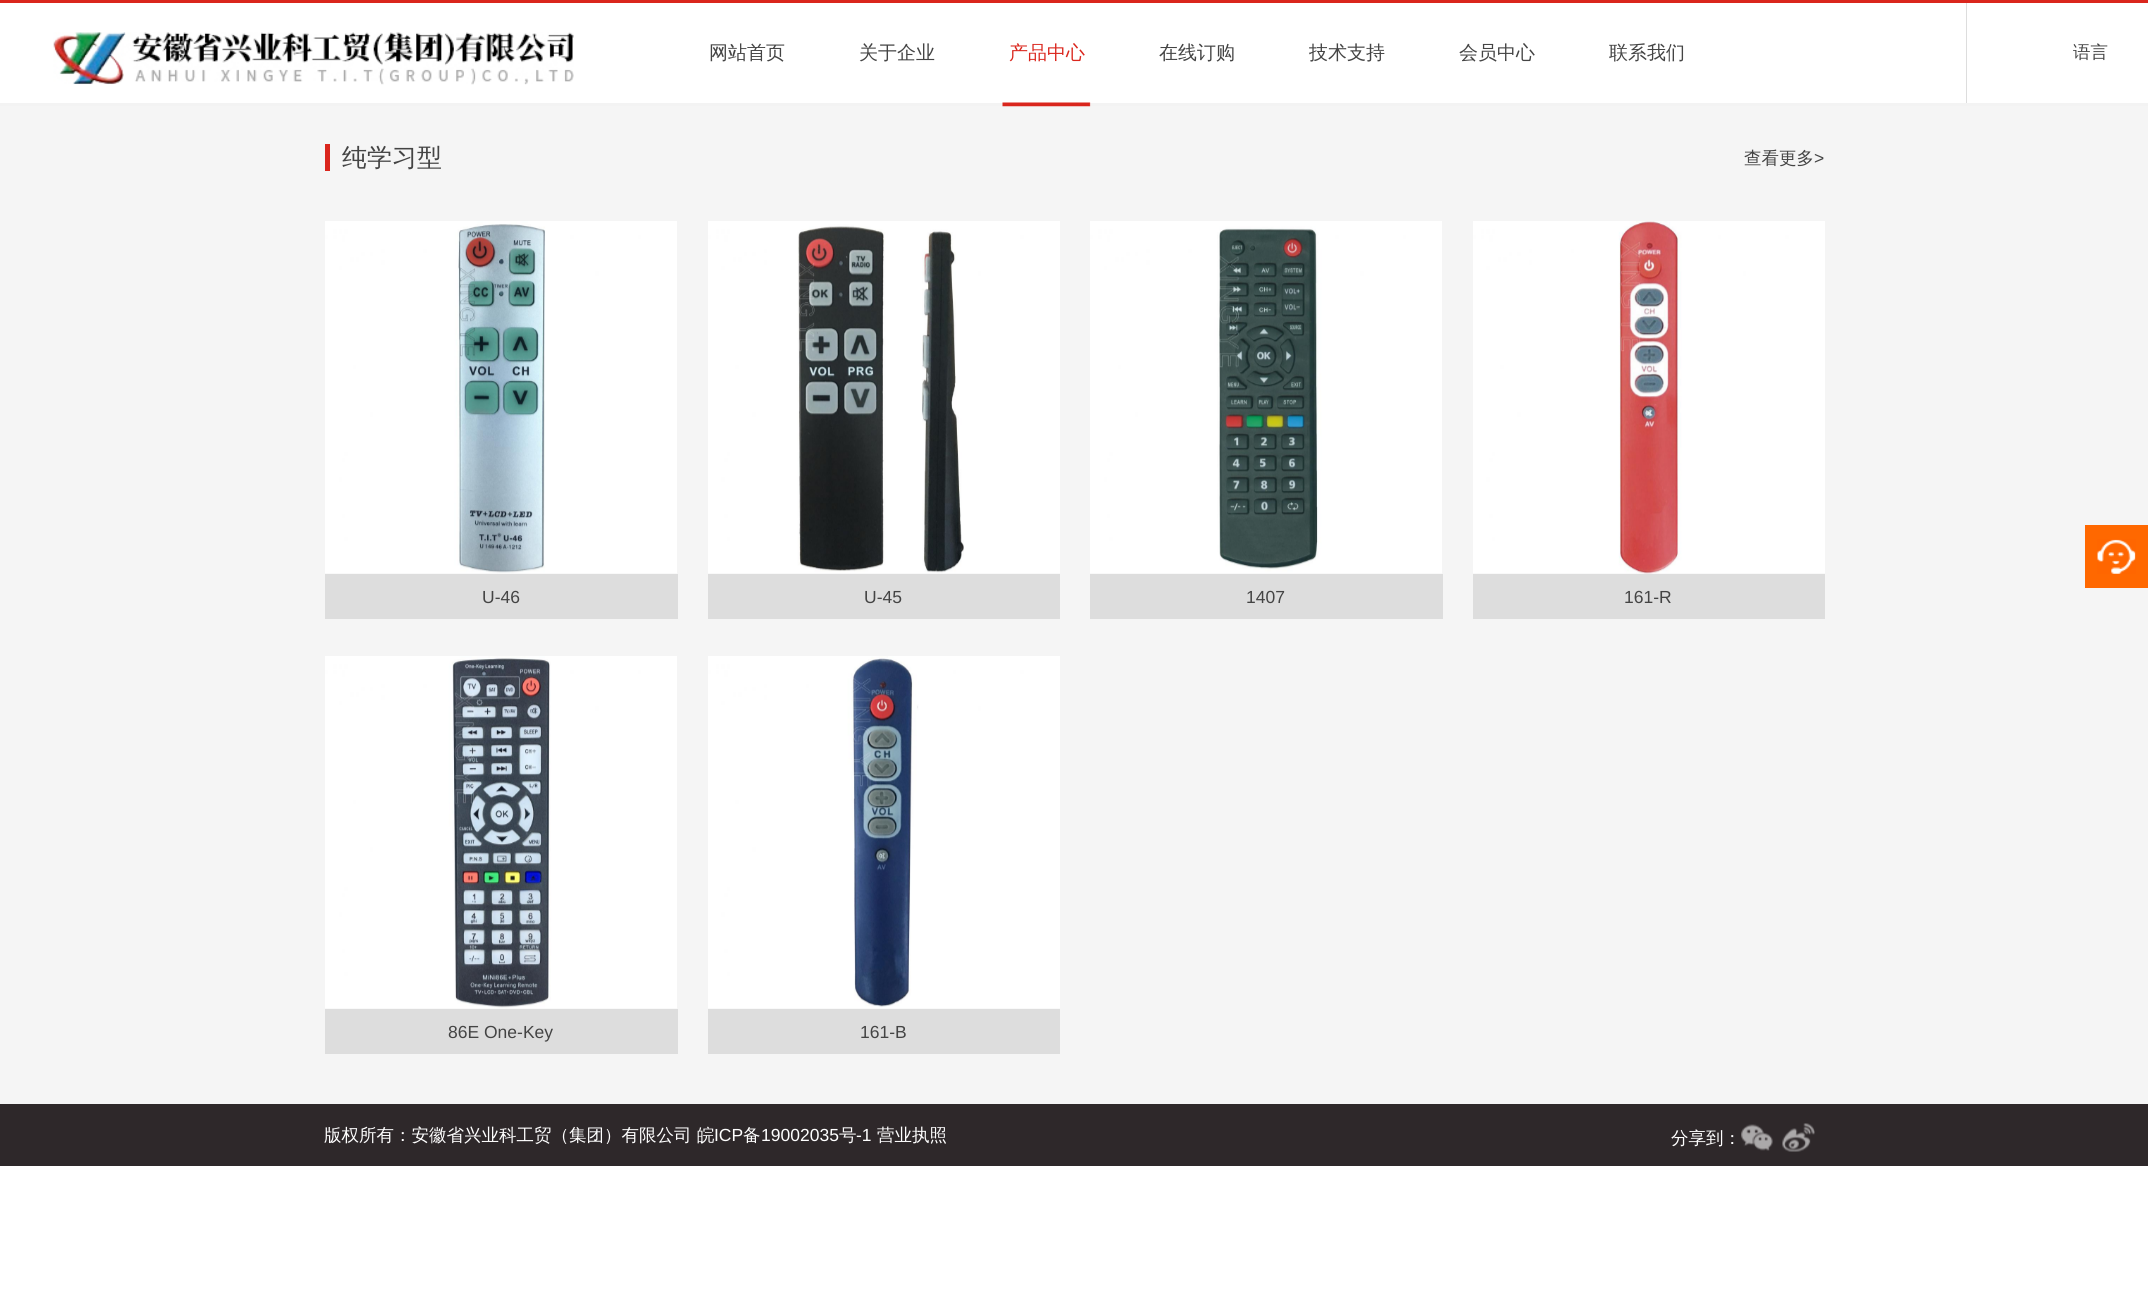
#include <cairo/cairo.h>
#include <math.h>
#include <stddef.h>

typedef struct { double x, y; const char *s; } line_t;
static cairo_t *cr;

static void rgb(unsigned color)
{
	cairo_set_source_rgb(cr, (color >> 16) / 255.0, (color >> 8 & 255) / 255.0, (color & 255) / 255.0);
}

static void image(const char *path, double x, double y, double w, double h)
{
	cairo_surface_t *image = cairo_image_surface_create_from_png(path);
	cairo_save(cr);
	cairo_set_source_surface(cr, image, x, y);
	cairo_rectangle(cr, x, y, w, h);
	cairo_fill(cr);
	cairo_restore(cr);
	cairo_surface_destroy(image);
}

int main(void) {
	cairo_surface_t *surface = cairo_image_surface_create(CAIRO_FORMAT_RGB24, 2148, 1299);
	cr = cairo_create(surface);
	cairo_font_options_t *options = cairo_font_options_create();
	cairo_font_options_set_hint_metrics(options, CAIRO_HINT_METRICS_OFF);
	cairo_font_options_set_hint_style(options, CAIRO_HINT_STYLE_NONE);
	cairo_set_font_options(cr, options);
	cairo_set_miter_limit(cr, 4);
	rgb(0xffffff);
	cairo_paint(cr);
	rgb(0xda261d);
	cairo_rectangle(cr, 0, 0, 2148, 3);
	cairo_fill(cr);
	rgb(0xf3f3f3);
	cairo_rectangle(cr, 0, 103, 2148, 3);
	cairo_fill(cr);
	image("img/1.png", 53, 32, 521, 53);
	rgb(0xf5f5f5);
	cairo_rectangle(cr, 0, 106, 2148, 998);
	cairo_fill(cr);
	image("img/2.png", 1002, 102, 89, 5);
	rgb(0xdddddd);
	cairo_rectangle(cr, 1966, 3, 1, 100);
	cairo_fill(cr);
	rgb(0xda261d);
	cairo_rectangle(cr, 325, 144, 5, 27);
	cairo_fill(cr);
	image("img/3.png", 325, 221, 352, 353);
	rgb(0xdddddd);
	cairo_rectangle(cr, 325, 574, 353, 45);
	cairo_fill(cr);
	image("img/4.png", 708, 221, 352, 353);
	cairo_rectangle(cr, 708, 574, 352, 45);
	cairo_fill(cr);
	image("img/5.png", 1090, 221, 352, 353);
	cairo_rectangle(cr, 1090, 574, 353, 45);
	cairo_fill(cr);
	image("img/6.png", 1473, 221, 352, 353);
	cairo_rectangle(cr, 1473, 574, 352, 45);
	cairo_fill(cr);
	image("img/7.png", 325, 656, 352, 353);
	cairo_rectangle(cr, 325, 1009, 353, 45);
	cairo_fill(cr);
	image("img/8.png", 708, 656, 352, 353);
	cairo_rectangle(cr, 708, 1009, 352, 45);
	cairo_fill(cr);
	rgb(0xff6800);
	cairo_rectangle(cr, 2085, 525, 63, 63);
	cairo_fill(cr);
	image("img/9.png", 2097, 539, 39, 35);
	rgb(0x2e282a);
	cairo_rectangle(cr, 0, 1104, 2148, 62);
	cairo_fill(cr);
	image("img/10.png", 1741, 1124, 32, 27);
	image("img/11.png", 1782, 1123, 33, 29);
	cairo_select_font_face(cr, "WenQuanYi Zen Hei Medium", CAIRO_FONT_SLANT_NORMAL, CAIRO_FONT_WEIGHT_NORMAL);
	cairo_set_font_size(cr, 19);
	rgb(0x444444);
	cairo_move_to(cr, 709, 59);
	cairo_show_text(cr, "网站首页");
	cairo_move_to(cr, 859, 59);
	cairo_show_text(cr, "关于企业");
	rgb(0xda261d);
	cairo_move_to(cr, 1009, 59);
	cairo_show_text(cr, "产品中心");
	rgb(0x444444);
	{
		static const line_t items[] = {
			{1159, 59, "在线订购"},
			{1309, 59, "技术支持"},
			{1459, 59, "会员中心"},
			{1609, 59, "联系我们"},
		};
		for (size_t i = 0; i < sizeof items / sizeof *items; i++) {
			cairo_move_to(cr, items[i].x, items[i].y);
			cairo_show_text(cr, items[i].s);
		}
	}
	cairo_set_font_size(cr, 17.5);
	cairo_move_to(cr, 2073, 58);
	cairo_show_text(cr, "语言");
	cairo_set_font_size(cr, 25);
	cairo_move_to(cr, 342, 166);
	cairo_show_text(cr, "纯学习型");
	cairo_set_font_size(cr, 17.5);
	cairo_move_to(cr, 1744, 164);
	cairo_show_text(cr, "查看更多");
	cairo_select_font_face(cr, "Liberation Sans", CAIRO_FONT_SLANT_NORMAL, CAIRO_FONT_WEIGHT_NORMAL);
	{
		static const line_t items[] = {
			{1814, 164, ">"},
			{482, 603, "U-46"},
			{864, 603, "U-45"},
			{1246, 603, "1407"},
			{1624, 603, "161-R"},
			{448, 1038, "86E One-Key"},
			{860, 1038, "161-B"},
		};
		for (size_t i = 0; i < sizeof items / sizeof *items; i++) {
			cairo_move_to(cr, items[i].x, items[i].y);
			cairo_show_text(cr, items[i].s);
		}
	}
	cairo_select_font_face(cr, "WenQuanYi Zen Hei Medium", CAIRO_FONT_SLANT_NORMAL, CAIRO_FONT_WEIGHT_NORMAL);
	rgb(0xffffff);
	cairo_move_to(cr, 324, 1141);
	cairo_show_text(cr, "版权所有：安徽省兴业科工贸（集团）有限公司");
	cairo_move_to(cr, 697, 1141);
	cairo_show_text(cr, "皖");
	cairo_select_font_face(cr, "Liberation Sans", CAIRO_FONT_SLANT_NORMAL, CAIRO_FONT_WEIGHT_NORMAL);
	cairo_move_to(cr, 714, 1141);
	cairo_show_text(cr, "ICP");
	cairo_select_font_face(cr, "WenQuanYi Zen Hei Medium", CAIRO_FONT_SLANT_NORMAL, CAIRO_FONT_WEIGHT_NORMAL);
	cairo_move_to(cr, 743, 1141);
	cairo_show_text(cr, "备");
	cairo_select_font_face(cr, "Liberation Sans", CAIRO_FONT_SLANT_NORMAL, CAIRO_FONT_WEIGHT_NORMAL);
	cairo_move_to(cr, 761, 1141);
	cairo_show_text(cr, "19002035");
	cairo_select_font_face(cr, "WenQuanYi Zen Hei Medium", CAIRO_FONT_SLANT_NORMAL, CAIRO_FONT_WEIGHT_NORMAL);
	cairo_move_to(cr, 839, 1141);
	cairo_show_text(cr, "号");
	cairo_select_font_face(cr, "Liberation Sans", CAIRO_FONT_SLANT_NORMAL, CAIRO_FONT_WEIGHT_NORMAL);
	cairo_move_to(cr, 856, 1141);
	cairo_show_text(cr, "-1");
	cairo_select_font_face(cr, "WenQuanYi Zen Hei Medium", CAIRO_FONT_SLANT_NORMAL, CAIRO_FONT_WEIGHT_NORMAL);
	cairo_move_to(cr, 877, 1141);
	cairo_show_text(cr, "营业执照");
	cairo_move_to(cr, 1671, 1144);
	cairo_show_text(cr, "分享到：");
	cairo_surface_write_to_png(surface, "page.png");
	cairo_font_options_destroy(options);
	cairo_destroy(cr);
	cairo_surface_destroy(surface);
	return 0;
}
